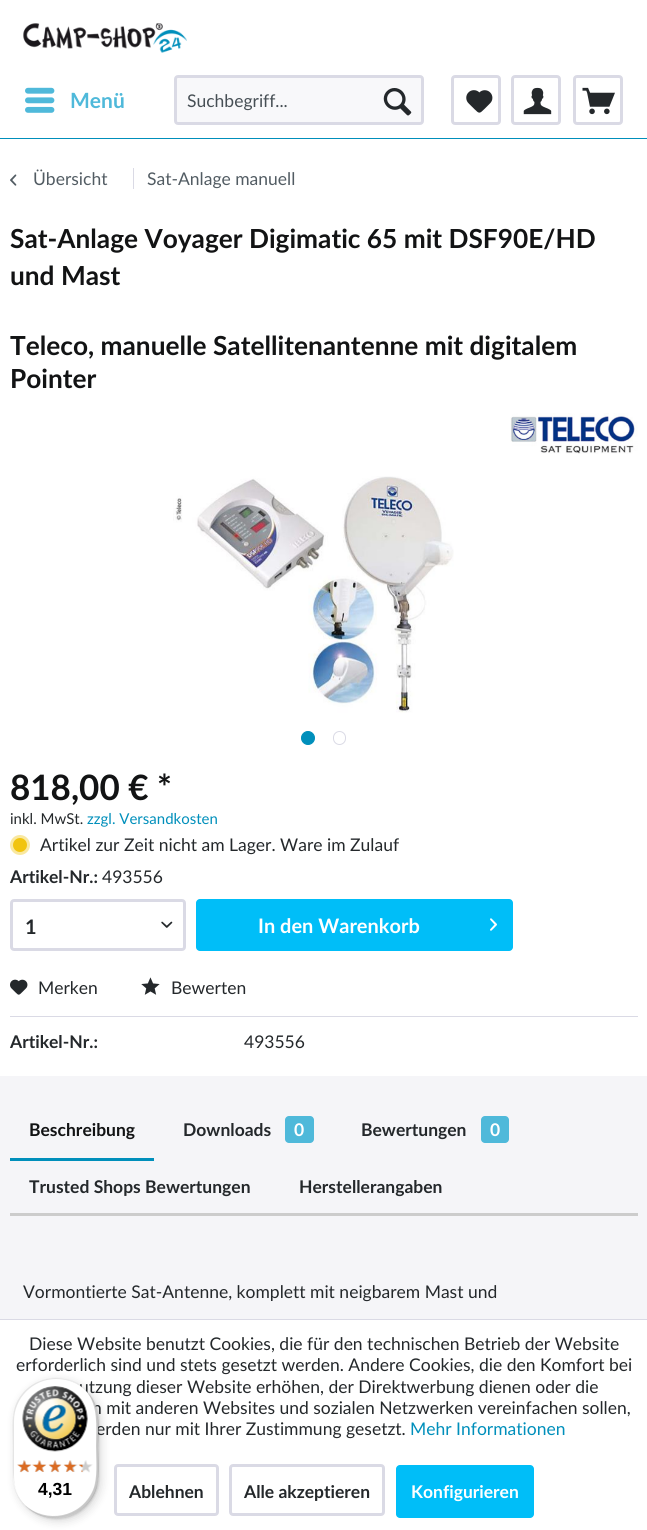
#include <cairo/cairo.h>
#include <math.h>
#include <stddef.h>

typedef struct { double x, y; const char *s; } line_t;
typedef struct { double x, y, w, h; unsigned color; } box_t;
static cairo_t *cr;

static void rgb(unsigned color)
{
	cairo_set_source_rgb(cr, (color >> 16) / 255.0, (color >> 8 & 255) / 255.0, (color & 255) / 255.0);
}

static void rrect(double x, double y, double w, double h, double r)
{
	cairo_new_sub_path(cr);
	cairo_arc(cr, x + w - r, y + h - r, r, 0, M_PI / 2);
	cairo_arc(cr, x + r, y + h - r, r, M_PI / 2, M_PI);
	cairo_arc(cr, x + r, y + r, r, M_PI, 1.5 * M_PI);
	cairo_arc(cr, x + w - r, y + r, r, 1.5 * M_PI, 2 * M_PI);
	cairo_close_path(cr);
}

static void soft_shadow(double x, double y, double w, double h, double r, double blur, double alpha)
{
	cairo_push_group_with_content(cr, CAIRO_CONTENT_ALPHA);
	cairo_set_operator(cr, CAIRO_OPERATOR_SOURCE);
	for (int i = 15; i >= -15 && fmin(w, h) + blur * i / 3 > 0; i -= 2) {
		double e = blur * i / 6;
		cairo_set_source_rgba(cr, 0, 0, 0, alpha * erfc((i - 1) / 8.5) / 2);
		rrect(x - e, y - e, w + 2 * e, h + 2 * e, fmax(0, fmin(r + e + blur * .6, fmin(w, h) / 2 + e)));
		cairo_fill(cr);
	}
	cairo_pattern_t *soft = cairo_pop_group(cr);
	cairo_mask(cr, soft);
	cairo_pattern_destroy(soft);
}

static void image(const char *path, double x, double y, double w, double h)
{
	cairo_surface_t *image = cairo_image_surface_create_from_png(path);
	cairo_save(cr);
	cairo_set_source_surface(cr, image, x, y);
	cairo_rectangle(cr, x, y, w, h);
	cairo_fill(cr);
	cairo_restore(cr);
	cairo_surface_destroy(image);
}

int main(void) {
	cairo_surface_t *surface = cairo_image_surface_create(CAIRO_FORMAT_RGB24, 647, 1530);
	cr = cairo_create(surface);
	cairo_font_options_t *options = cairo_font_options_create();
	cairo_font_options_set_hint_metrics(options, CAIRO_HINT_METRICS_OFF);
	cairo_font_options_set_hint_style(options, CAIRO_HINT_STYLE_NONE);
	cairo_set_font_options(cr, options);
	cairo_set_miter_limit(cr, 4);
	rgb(0xffffff);
	cairo_paint(cr);
	rgb(0x008fbb);
	cairo_rectangle(cr, 0, 138, 647, 1);
	cairo_fill(cr);
	image("img/1.png", 23, 23, 164, 30);
	image("img/2.png", 25, 87, 30, 26);
	rgb(0xf8f8fa);
	rrect(175.5, 76.5, 247, 47, 2.5);
	cairo_fill_preserve(cr);
	rgb(0xdadae5);
	cairo_set_line_width(cr, 3);
	cairo_stroke(cr);
	image("img/3.png", 383, 88, 29, 28);
	rrect(452.5, 76.5, 47, 47, 2.5);
	cairo_stroke(cr);
	image("img/4.png", 466, 90, 27, 23);
	rrect(512.5, 76.5, 47, 47, 2.5);
	cairo_stroke(cr);
	image("img/5.png", 523, 87, 29, 28);
	rrect(574.5, 76.5, 47, 47, 2.5);
	cairo_stroke(cr);
	image("img/6.png", 582, 87, 33, 28);
	image("img/7.png", 10, 174, 7, 12);
	cairo_rectangle(cr, 133, 168, 1, 21);
	cairo_fill(cr);
	image("img/8.png", 510, 413, 128, 41);
	image("img/9.png", 173, 476, 281, 237);
	rgb(0x008fbb);
	cairo_arc(cr, 308, 738, 6.5, 0, 2 * M_PI);
	cairo_fill_preserve(cr);
	cairo_set_line_width(cr, 1);
	cairo_stroke(cr);
	rrect(333.5, 731.5, 12, 13, 6);
	rgb(0xdadae5);
	cairo_stroke(cr);
	rgb(0xf1c40f);
	cairo_arc(cr, 20, 845, 8.5, 0, 2 * M_PI);
	cairo_fill_preserve(cr);
	rgb(0xf9e8a0);
	cairo_set_line_width(cr, 3);
	cairo_stroke(cr);
	rrect(11.5, 900.5, 173, 49, 2.5);
	rgb(0xdadae5);
	cairo_stroke(cr);
	image("img/10.png", 161, 921, 12, 7);
	rgb(0x00bef8);
	rrect(196, 899, 317, 52, 4);
	cairo_fill(cr);
	image("img/11.png", 490, 918, 7, 13);
	rgb(0xdadae5);
	cairo_rectangle(cr, 10, 1016, 628, 1);
	cairo_fill(cr);
	image("img/12.png", 10, 979, 18, 16);
	image("img/13.png", 141, 977, 19, 18);
	{
		static const box_t items[] = {
			{0, 1076, 647, 243, 0xf5f5f8},
			{10, 1213, 628, 3, 0xcccccc},
			{10, 1158, 144, 3, 0x008fbb},
		};
		for (size_t i = 0; i < sizeof items / sizeof *items; i++) {
			rgb(items[i].color);
			cairo_rectangle(cr, items[i].x, items[i].y, items[i].w, items[i].h);
			cairo_fill(cr);
		}
	}
	rgb(0x4fb9da);
	rrect(285, 1116, 29, 27, 4);
	cairo_fill(cr);
	rrect(481, 1116, 28, 27, 4);
	cairo_fill(cr);
	rgb(0xdadae5);
	cairo_rectangle(cr, 0, 1319, 647, 1);
	cairo_fill(cr);
	rrect(115.5, 1465.5, 102, 49, 2.5);
	cairo_stroke(cr);
	rrect(230.5, 1465.5, 153, 49, 2.5);
	cairo_stroke(cr);
	rgb(0x00bef8);
	rrect(396, 1465, 138, 53, 4);
	cairo_fill(cr);
	rgb(0x000000);
	soft_shadow(16, 1381, 85, 140, 42.5, 5, 0.15);
	soft_shadow(14, 1379, 85, 140, 42.5, 1, 0.15);
	cairo_select_font_face(cr, "Lato", CAIRO_FONT_SLANT_NORMAL, CAIRO_FONT_WEIGHT_BOLD);
	cairo_set_font_size(cr, 21);
	rgb(0x4fb9da);
	cairo_move_to(cr, 70, 108);
	cairo_show_text(cr, "Menü");
	cairo_select_font_face(cr, "Lato", CAIRO_FONT_SLANT_NORMAL, CAIRO_FONT_WEIGHT_NORMAL);
	cairo_set_font_size(cr, 17.5);
	rgb(0x474f55);
	cairo_move_to(cr, 187, 107);
	cairo_show_text(cr, "Suchbegriff...");
	rgb(0x525c63);
	cairo_move_to(cr, 33, 185);
	cairo_show_text(cr, "Übersicht");
	cairo_move_to(cr, 147, 185);
	cairo_show_text(cr, "Sat-Anlage manuell");
	cairo_select_font_face(cr, "Lato", CAIRO_FONT_SLANT_NORMAL, CAIRO_FONT_WEIGHT_BOLD);
	cairo_set_font_size(cr, 26.25);
	rgb(0x121314);
	{
		static const line_t items[] = {
			{10, 248, "Sat-Anlage Voyager Digimatic 65 mit DSF90E/HD"},
			{10, 285, "und Mast"},
			{10, 355, "Teleco, manuelle Satellitenantenne mit digitalem"},
			{10, 388, "Pointer"},
		};
		for (size_t i = 0; i < sizeof items / sizeof *items; i++) {
			cairo_move_to(cr, items[i].x, items[i].y);
			cairo_show_text(cr, items[i].s);
		}
	}
	cairo_set_font_size(cr, 35);
	cairo_move_to(cr, 10, 800);
	cairo_show_text(cr, "818,00 € *");
	cairo_select_font_face(cr, "Lato", CAIRO_FONT_SLANT_NORMAL, CAIRO_FONT_WEIGHT_NORMAL);
	cairo_set_font_size(cr, 15);
	rgb(0x24282b);
	cairo_move_to(cr, 10, 824);
	cairo_show_text(cr, "inkl. MwSt.");
	rgb(0x008fbb);
	cairo_move_to(cr, 87, 824);
	cairo_show_text(cr, "zzgl. Versandkosten");
	cairo_set_font_size(cr, 17.5);
	rgb(0x24282b);
	cairo_move_to(cr, 40, 851);
	cairo_show_text(cr, "Artikel zur Zeit nicht am Lager. Ware im Zulauf");
	cairo_select_font_face(cr, "Lato", CAIRO_FONT_SLANT_NORMAL, CAIRO_FONT_WEIGHT_BOLD);
	cairo_move_to(cr, 10, 883);
	cairo_show_text(cr, "Artikel-Nr.:");
	cairo_select_font_face(cr, "Lato", CAIRO_FONT_SLANT_NORMAL, CAIRO_FONT_WEIGHT_NORMAL);
	cairo_move_to(cr, 102, 883);
	cairo_show_text(cr, "493556");
	cairo_select_font_face(cr, "Lato", CAIRO_FONT_SLANT_NORMAL, CAIRO_FONT_WEIGHT_BOLD);
	cairo_set_font_size(cr, 20);
	cairo_move_to(cr, 25, 934);
	cairo_show_text(cr, "1");
	rgb(0xffffff);
	cairo_move_to(cr, 258, 933);
	cairo_show_text(cr, "In den Warenkorb");
	cairo_select_font_face(cr, "Lato", CAIRO_FONT_SLANT_NORMAL, CAIRO_FONT_WEIGHT_NORMAL);
	cairo_set_font_size(cr, 17.5);
	rgb(0x24282b);
	cairo_move_to(cr, 38, 994);
	cairo_show_text(cr, "Merken");
	cairo_move_to(cr, 171, 994);
	cairo_show_text(cr, "Bewerten");
	cairo_select_font_face(cr, "Lato", CAIRO_FONT_SLANT_NORMAL, CAIRO_FONT_WEIGHT_BOLD);
	cairo_move_to(cr, 10, 1048);
	cairo_show_text(cr, "Artikel-Nr.:");
	cairo_select_font_face(cr, "Lato", CAIRO_FONT_SLANT_NORMAL, CAIRO_FONT_WEIGHT_NORMAL);
	cairo_move_to(cr, 244, 1048);
	cairo_show_text(cr, "493556");
	cairo_select_font_face(cr, "Lato", CAIRO_FONT_SLANT_NORMAL, CAIRO_FONT_WEIGHT_BOLD);
	rgb(0x121314);
	cairo_move_to(cr, 29, 1136);
	cairo_show_text(cr, "Beschreibung");
	rgb(0x24282b);
	cairo_move_to(cr, 183, 1136);
	cairo_show_text(cr, "Downloads");
	rgb(0xffffff);
	cairo_move_to(cr, 294, 1136);
	cairo_show_text(cr, "0");
	rgb(0x24282b);
	cairo_move_to(cr, 361, 1136);
	cairo_show_text(cr, "Bewertungen");
	rgb(0xffffff);
	cairo_move_to(cr, 490, 1136);
	cairo_show_text(cr, "0");
	rgb(0x24282b);
	cairo_move_to(cr, 29, 1193);
	cairo_show_text(cr, "Trusted Shops Bewertungen");
	cairo_move_to(cr, 299, 1193);
	cairo_show_text(cr, "Herstellerangaben");
	cairo_select_font_face(cr, "Lato", CAIRO_FONT_SLANT_NORMAL, CAIRO_FONT_WEIGHT_NORMAL);
	{
		static const line_t items[] = {
			{23, 1298, "Vormontierte Sat-Antenne, komplett mit neigbarem Mast und"},
			{29, 1350, "Diese Website benutzt Cookies, die für den technischen Betrieb der Website"},
			{16, 1371, "erforderlich sind und stets gesetzt werden. Andere Cookies, die den Komfort bei"},
			{79, 1393, "utzung dieser Website erhöhen, der Direktwerbung dienen oder die"},
			{92, 1414, "n mit anderen Websites und sozialen Netzwerken vereinfachen sollen,"},
			{96, 1435, "erden nur mit Ihrer Zustimmung gesetzt."},
		};
		for (size_t i = 0; i < sizeof items / sizeof *items; i++) {
			cairo_move_to(cr, items[i].x, items[i].y);
			cairo_show_text(cr, items[i].s);
		}
	}
	rgb(0x008fbb);
	cairo_move_to(cr, 410, 1435);
	cairo_show_text(cr, "Mehr Informationen");
	cairo_select_font_face(cr, "Lato", CAIRO_FONT_SLANT_NORMAL, CAIRO_FONT_WEIGHT_BOLD);
	rgb(0x24282b);
	cairo_move_to(cr, 129, 1498);
	cairo_show_text(cr, "Ablehnen");
	cairo_move_to(cr, 244, 1498);
	cairo_show_text(cr, "Alle akzeptieren");
	rgb(0xffffff);
	cairo_move_to(cr, 411, 1498);
	cairo_show_text(cr, "Konfigurieren");
	rrect(13, 1378, 85, 140, 42.5);
	cairo_fill(cr);
	rgb(0xe5e5e5);
	cairo_new_path(cr);
	cairo_move_to(cr, 56, 1379);
	cairo_curve_to(cr, 68, 1379, 78, 1383, 86, 1391);
	cairo_curve_to(cr, 65, 1369, 28, 1376, 16, 1404);
	cairo_curve_to(cr, 11, 1416, 13, 1434, 13, 1448);
	cairo_curve_to(cr, 13, 1469, 10, 1490, 26, 1506);
	cairo_curve_to(cr, 18, 1498, 14, 1488, 14, 1476);
	cairo_line_to(cr, 14, 1421);
	cairo_curve_to(cr, 14, 1398, 33, 1379, 56, 1379);
	cairo_close_path(cr);
	cairo_fill(cr);
	cairo_set_source_rgba(cr, 0, 0, 0, 0.2);
	cairo_new_path(cr);
	cairo_move_to(cr, 25, 1505);
	cairo_curve_to(cr, 45, 1527, 83, 1520, 95, 1492);
	cairo_curve_to(cr, 100, 1480, 98, 1462, 98, 1448);
	cairo_curve_to(cr, 98, 1427, 102, 1405, 85, 1390);
	cairo_curve_to(cr, 99, 1405, 96, 1427, 96, 1446);
	cairo_curve_to(cr, 96, 1460, 98, 1478, 93, 1490);
	cairo_curve_to(cr, 81, 1518, 46, 1524, 25, 1505);
	cairo_close_path(cr);
	cairo_fill(cr);
	cairo_set_source_rgba(cr, 0.196, 0.196, 0.196, 0.2);
	cairo_new_path(cr);
	cairo_move_to(cr, 25, 1506);
	cairo_curve_to(cr, 46, 1526, 83, 1520, 95, 1492);
	cairo_curve_to(cr, 100, 1480, 98, 1462, 98, 1448);
	cairo_curve_to(cr, 98, 1427, 101, 1406, 86, 1390);
	cairo_curve_to(cr, 93, 1398, 97, 1408, 97, 1419);
	cairo_line_to(cr, 97, 1474);
	cairo_curve_to(cr, 97, 1498, 78, 1517, 54, 1517);
	cairo_curve_to(cr, 43, 1517, 33, 1513, 25, 1506);
	cairo_close_path(cr);
	cairo_fill(cr);
	cairo_set_source_rgba(cr, 1, 1, 1, 0.3);
	cairo_new_path(cr);
	cairo_move_to(cr, 25, 1506);
	cairo_curve_to(cr, 46, 1526, 83, 1520, 95, 1492);
	cairo_curve_to(cr, 100, 1480, 98, 1462, 98, 1448);
	cairo_curve_to(cr, 98, 1427, 101, 1406, 86, 1390);
	cairo_curve_to(cr, 93, 1398, 97, 1408, 97, 1419);
	cairo_line_to(cr, 97, 1474);
	cairo_curve_to(cr, 97, 1498, 78, 1517, 54, 1517);
	cairo_curve_to(cr, 43, 1517, 33, 1513, 25, 1506);
	cairo_close_path(cr);
	cairo_fill(cr);
	image("img/14.png", 22, 1386, 66, 66);
	image("img/15.png", 17, 1460, 14, 13);
	image("img/16.png", 34, 1460, 12, 12);
	image("img/17.png", 49, 1460, 12, 13);
	image("img/18.png", 64, 1460, 14, 12);
	image("img/19.png", 79, 1460, 14, 13);
	image("img/20.png", 17, 1460, 15, 12);
	image("img/21.png", 32, 1460, 15, 12);
	image("img/22.png", 48, 1460, 14, 12);
	image("img/23.png", 63, 1460, 14, 12);
	image("img/24.png", 78, 1464, 5, 8);
	cairo_select_font_face(cr, "Liberation Sans", CAIRO_FONT_SLANT_NORMAL, CAIRO_FONT_WEIGHT_BOLD);
	rgb(0x000000);
	cairo_move_to(cr, 38, 1495);
	cairo_show_text(cr, "4,31");
	cairo_surface_write_to_png(surface, "page.png");
	cairo_font_options_destroy(options);
	cairo_destroy(cr);
	cairo_surface_destroy(surface);
	return 0;
}
